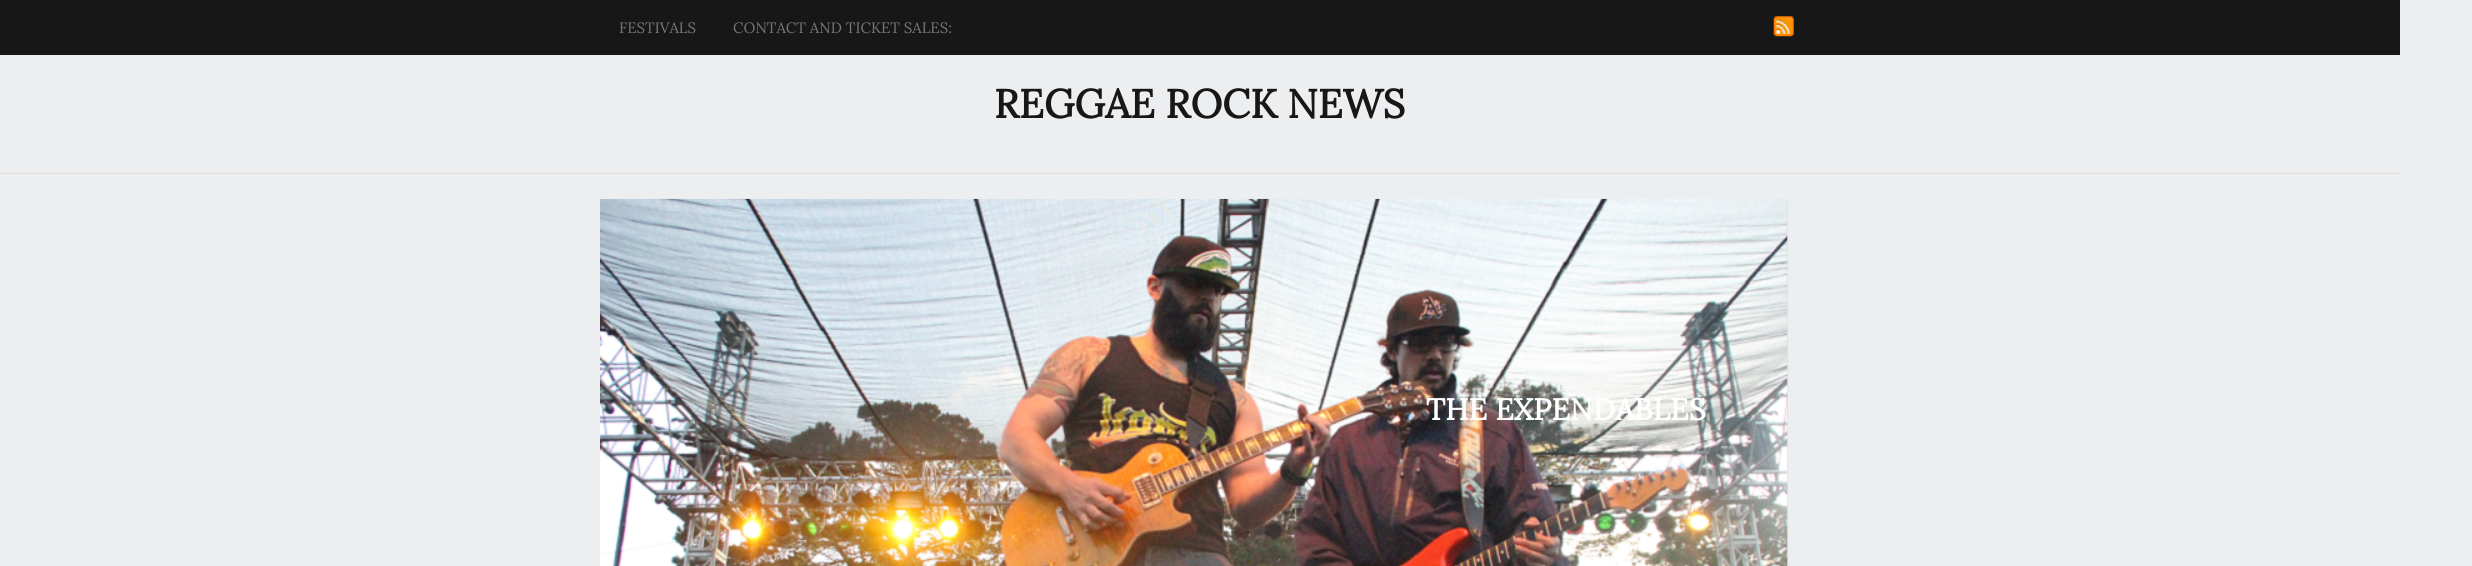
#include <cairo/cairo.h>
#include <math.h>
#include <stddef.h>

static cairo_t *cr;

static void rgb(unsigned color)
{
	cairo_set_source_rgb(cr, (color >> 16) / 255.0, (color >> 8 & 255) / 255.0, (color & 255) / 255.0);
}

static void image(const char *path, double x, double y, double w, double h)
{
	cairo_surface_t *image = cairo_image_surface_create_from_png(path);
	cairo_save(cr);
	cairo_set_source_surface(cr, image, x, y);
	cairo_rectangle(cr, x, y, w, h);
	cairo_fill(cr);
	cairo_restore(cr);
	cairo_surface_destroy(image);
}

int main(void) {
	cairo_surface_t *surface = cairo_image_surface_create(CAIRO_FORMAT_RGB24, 2472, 566);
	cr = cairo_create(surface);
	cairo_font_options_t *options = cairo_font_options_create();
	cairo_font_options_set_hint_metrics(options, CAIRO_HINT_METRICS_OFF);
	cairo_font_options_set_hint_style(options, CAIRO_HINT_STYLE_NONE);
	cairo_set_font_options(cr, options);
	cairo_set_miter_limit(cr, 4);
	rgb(0xedeef0);
	cairo_paint(cr);
	rgb(0x171717);
	cairo_rectangle(cr, 0, 0, 2400, 55);
	cairo_fill(cr);
	image("img/1.png", 1773, 16, 21, 21);
	rgb(0xdedede);
	cairo_rectangle(cr, 0, 173, 2400, 1);
	cairo_fill(cr);
	rgb(0xdfdfdf);
	cairo_rectangle(cr, 1787, 199, 1, 367);
	cairo_fill(cr);
	image("img/2.png", 600, 198, 1188, 368);
	cairo_select_font_face(cr, "Lora", CAIRO_FONT_SLANT_NORMAL, CAIRO_FONT_WEIGHT_NORMAL);
	cairo_set_font_size(cr, 15);
	rgb(0x777777);
	cairo_move_to(cr, 619, 33);
	cairo_show_text(cr, "FESTIVALS");
	cairo_move_to(cr, 733, 33);
	cairo_show_text(cr, "CONTACT AND TICKET SALES:");
	cairo_select_font_face(cr, "Lora", CAIRO_FONT_SLANT_NORMAL, CAIRO_FONT_WEIGHT_BOLD);
	cairo_set_font_size(cr, 40);
	rgb(0x171717);
	cairo_move_to(cr, 994, 118);
	cairo_show_text(cr, "REGGAE ROCK NEWS");
	cairo_set_font_size(cr, 30);
	rgb(0xffffff);
	cairo_move_to(cr, 1426, 420);
	cairo_show_text(cr, "THE EXPENDABLES");
	cairo_surface_write_to_png(surface, "page.png");
	cairo_font_options_destroy(options);
	cairo_destroy(cr);
	cairo_surface_destroy(surface);
	return 0;
}
